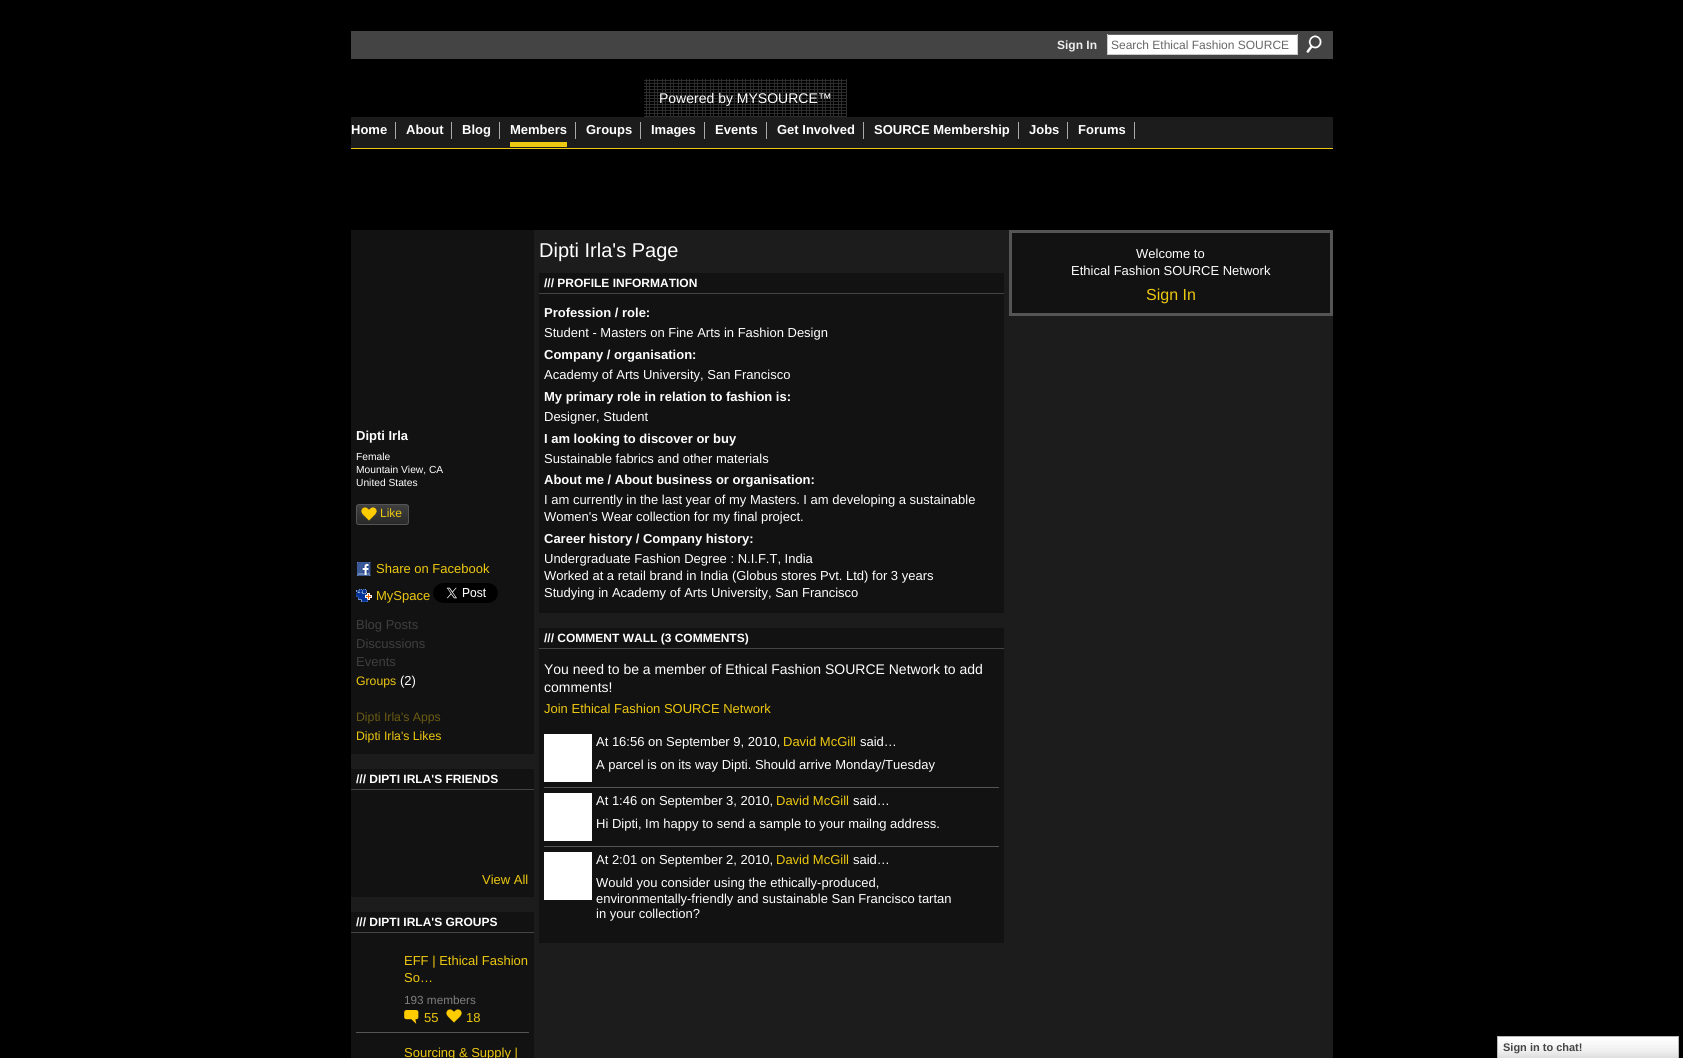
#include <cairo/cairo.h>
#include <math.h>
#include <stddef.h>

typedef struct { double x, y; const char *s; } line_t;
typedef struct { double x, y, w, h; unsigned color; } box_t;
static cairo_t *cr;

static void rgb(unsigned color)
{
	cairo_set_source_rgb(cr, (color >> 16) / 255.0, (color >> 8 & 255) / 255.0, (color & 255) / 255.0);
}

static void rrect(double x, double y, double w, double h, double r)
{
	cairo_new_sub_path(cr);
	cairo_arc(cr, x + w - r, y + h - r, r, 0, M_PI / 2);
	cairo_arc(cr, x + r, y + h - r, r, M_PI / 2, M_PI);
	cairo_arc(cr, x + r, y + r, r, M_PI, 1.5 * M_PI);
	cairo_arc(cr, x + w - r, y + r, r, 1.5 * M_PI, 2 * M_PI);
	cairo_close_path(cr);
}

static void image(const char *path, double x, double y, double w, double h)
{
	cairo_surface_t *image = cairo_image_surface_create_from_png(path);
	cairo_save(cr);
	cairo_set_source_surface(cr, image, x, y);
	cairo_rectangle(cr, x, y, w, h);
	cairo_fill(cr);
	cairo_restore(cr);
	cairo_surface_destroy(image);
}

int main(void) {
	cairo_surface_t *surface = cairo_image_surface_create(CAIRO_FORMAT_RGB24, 1683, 1058);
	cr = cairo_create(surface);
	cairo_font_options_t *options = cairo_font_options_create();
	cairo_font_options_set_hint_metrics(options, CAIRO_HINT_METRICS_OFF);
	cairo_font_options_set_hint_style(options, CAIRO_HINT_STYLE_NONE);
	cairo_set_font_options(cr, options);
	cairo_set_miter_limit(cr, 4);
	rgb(0x000000);
	cairo_paint(cr);
	{
		static const box_t items[] = {
			{351, 31, 982, 28, 0x444444},
			{1108, 35, 189, 19, 0xffffff},
			{1107, 34, 191, 1, 0x666666},
			{1297, 34, 1, 21, 0xcccccc},
			{1107, 54, 191, 1, 0xcccccc},
			{1107, 34, 1, 21, 0xcccccc},
		};
		for (size_t i = 0; i < sizeof items / sizeof *items; i++) {
			rgb(items[i].color);
			cairo_rectangle(cr, items[i].x, items[i].y, items[i].w, items[i].h);
			cairo_fill(cr);
		}
	}
	image("img/1.png", 1306, 35, 16, 18);
	image("img/2.png", 644, 79, 203, 38);
	{
		static const box_t items[] = {
			{351, 117, 982, 31, 0x1c1c1c},
			{351, 148, 982, 1, 0xedc811},
			{395, 122, 1, 17, 0xaaaaaa},
			{451, 122, 1, 17, 0xaaaaaa},
			{499, 122, 1, 17, 0xaaaaaa},
			{575, 122, 1, 17, 0xaaaaaa},
			{510, 142, 57, 5, 0xedc811},
			{640, 122, 1, 17, 0xaaaaaa},
			{704, 122, 1, 17, 0xaaaaaa},
			{766, 122, 1, 17, 0xaaaaaa},
			{863, 122, 1, 17, 0xaaaaaa},
			{1018, 122, 1, 17, 0xaaaaaa},
			{1067, 122, 1, 17, 0xaaaaaa},
			{1134, 122, 1, 17, 0xaaaaaa},
			{351, 230, 982, 828, 0x1c1c1c},
			{351, 230, 183, 524, 0x121212},
		};
		for (size_t i = 0; i < sizeof items / sizeof *items; i++) {
			rgb(items[i].color);
			cairo_rectangle(cr, items[i].x, items[i].y, items[i].w, items[i].h);
			cairo_fill(cr);
		}
	}
	image("img/3.png", 356, 505, 53, 20);
	rrect(356.5, 504.5, 52, 20, 2.5);
	rgb(0x555555);
	cairo_set_line_width(cr, 1);
	cairo_stroke(cr);
	image("img/4.png", 361, 507, 16, 14);
	image("img/5.png", 357, 562, 14, 14);
	image("img/6.png", 356, 589, 16, 13);
	image("img/7.png", 433, 583, 65, 20);
	{
		static const box_t items[] = {
			{351, 769, 183, 128, 0x121212},
			{351, 789, 183, 1, 0x444444},
			{351, 912, 183, 146, 0x121212},
			{351, 932, 183, 1, 0x444444},
			{356, 1032, 173, 1, 0x555555},
		};
		for (size_t i = 0; i < sizeof items / sizeof *items; i++) {
			rgb(items[i].color);
			cairo_rectangle(cr, items[i].x, items[i].y, items[i].w, items[i].h);
			cairo_fill(cr);
		}
	}
	image("img/8.png", 404, 1010, 15, 14);
	image("img/9.png", 446, 1009, 16, 14);
	{
		static const box_t items[] = {
			{539, 273, 465, 340, 0x121212},
			{539, 293, 465, 1, 0x444444},
			{539, 628, 465, 315, 0x121212},
			{539, 648, 465, 1, 0x444444},
			{544, 787, 455, 1, 0x555555},
			{544, 734, 48, 48, 0xffffff},
			{544, 846, 455, 1, 0x555555},
			{544, 793, 48, 48, 0xffffff},
			{544, 852, 48, 48, 0xffffff},
		};
		for (size_t i = 0; i < sizeof items / sizeof *items; i++) {
			rgb(items[i].color);
			cairo_rectangle(cr, items[i].x, items[i].y, items[i].w, items[i].h);
			cairo_fill(cr);
		}
	}
	rgb(0x121212);
	cairo_rectangle(cr, 1010.5, 231.5, 321, 83);
	cairo_fill_preserve(cr);
	rgb(0x555555);
	cairo_set_line_width(cr, 3);
	cairo_stroke(cr);
	image("img/10.png", 1498, 1037, 180, 21);
	cairo_rectangle(cr, 1497.5, 1036.5, 181, 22);
	rgb(0xb7b7b7);
	cairo_set_line_width(cr, 1);
	cairo_stroke(cr);
	cairo_select_font_face(cr, "Liberation Sans", CAIRO_FONT_SLANT_NORMAL, CAIRO_FONT_WEIGHT_BOLD);
	cairo_set_font_size(cr, 12);
	rgb(0xeeeeee);
	cairo_move_to(cr, 1057, 49);
	cairo_show_text(cr, "Sign In");
	cairo_select_font_face(cr, "Liberation Sans", CAIRO_FONT_SLANT_NORMAL, CAIRO_FONT_WEIGHT_NORMAL);
	rgb(0x666666);
	cairo_move_to(cr, 1111, 49);
	cairo_show_text(cr, "Search Ethical Fashion SOURCE");
	cairo_set_font_size(cr, 14);
	rgb(0xffffff);
	cairo_move_to(cr, 659, 103);
	cairo_show_text(cr, "Powered by MYSOURCE™");
	cairo_select_font_face(cr, "Liberation Sans", CAIRO_FONT_SLANT_NORMAL, CAIRO_FONT_WEIGHT_BOLD);
	cairo_set_font_size(cr, 13);
	{
		static const line_t items[] = {
			{351, 134, "Home"},
			{406, 134, "About"},
			{462, 134, "Blog"},
			{510, 134, "Members"},
			{586, 134, "Groups"},
			{651, 134, "Images"},
			{715, 134, "Events"},
			{777, 134, "Get Involved"},
			{874, 134, "SOURCE Membership"},
			{1029, 134, "Jobs"},
			{1078, 134, "Forums"},
			{356, 440, "Dipti Irla"},
		};
		for (size_t i = 0; i < sizeof items / sizeof *items; i++) {
			cairo_move_to(cr, items[i].x, items[i].y);
			cairo_show_text(cr, items[i].s);
		}
	}
	cairo_select_font_face(cr, "Liberation Sans", CAIRO_FONT_SLANT_NORMAL, CAIRO_FONT_WEIGHT_NORMAL);
	cairo_set_font_size(cr, 10.25);
	{
		static const line_t items[] = {
			{356, 460, "Female"},
			{356, 473, "Mountain View, CA"},
			{356, 486, "United States"},
		};
		for (size_t i = 0; i < sizeof items / sizeof *items; i++) {
			cairo_move_to(cr, items[i].x, items[i].y);
			cairo_show_text(cr, items[i].s);
		}
	}
	cairo_set_font_size(cr, 12);
	rgb(0xedc811);
	cairo_move_to(cr, 380, 517);
	cairo_show_text(cr, "Like");
	cairo_set_font_size(cr, 13);
	cairo_move_to(cr, 376, 573);
	cairo_show_text(cr, "Share on Facebook");
	cairo_move_to(cr, 376, 600);
	cairo_show_text(cr, "MySpace");
	rgb(0x3e3e3e);
	{
		static const line_t items[] = {
			{356, 629, "Blog Posts"},
			{356, 648, "Discussions"},
			{356, 666, "Events"},
		};
		for (size_t i = 0; i < sizeof items / sizeof *items; i++) {
			cairo_move_to(cr, items[i].x, items[i].y);
			cairo_show_text(cr, items[i].s);
		}
	}
	cairo_set_font_size(cr, 12.25);
	rgb(0xedc811);
	cairo_move_to(cr, 356, 685);
	cairo_show_text(cr, "Groups");
	cairo_set_font_size(cr, 13);
	rgb(0xffffff);
	cairo_move_to(cr, 400, 685);
	cairo_show_text(cr, "(2)");
	cairo_set_font_size(cr, 12.25);
	rgb(0x6a5b12);
	cairo_move_to(cr, 356, 721);
	cairo_show_text(cr, "Dipti Irla's Apps");
	rgb(0xedc811);
	cairo_move_to(cr, 356, 740);
	cairo_show_text(cr, "Dipti Irla's Likes");
	cairo_select_font_face(cr, "Liberation Sans", CAIRO_FONT_SLANT_NORMAL, CAIRO_FONT_WEIGHT_BOLD);
	cairo_set_font_size(cr, 12);
	rgb(0xffffff);
	cairo_move_to(cr, 356, 783);
	cairo_show_text(cr, "/// DIPTI IRLA'S FRIENDS");
	cairo_select_font_face(cr, "Liberation Sans", CAIRO_FONT_SLANT_NORMAL, CAIRO_FONT_WEIGHT_NORMAL);
	cairo_set_font_size(cr, 13);
	rgb(0xedc811);
	cairo_move_to(cr, 482, 884);
	cairo_show_text(cr, "View All");
	cairo_select_font_face(cr, "Liberation Sans", CAIRO_FONT_SLANT_NORMAL, CAIRO_FONT_WEIGHT_BOLD);
	cairo_set_font_size(cr, 12);
	rgb(0xffffff);
	cairo_move_to(cr, 356, 926);
	cairo_show_text(cr, "/// DIPTI IRLA'S GROUPS");
	cairo_select_font_face(cr, "Liberation Sans", CAIRO_FONT_SLANT_NORMAL, CAIRO_FONT_WEIGHT_NORMAL);
	cairo_set_font_size(cr, 13);
	rgb(0xedc811);
	cairo_move_to(cr, 404, 965);
	cairo_show_text(cr, "EFF | Ethical Fashion");
	cairo_move_to(cr, 404, 982);
	cairo_show_text(cr, "So…");
	cairo_set_font_size(cr, 11.75);
	rgb(0x7f7f7f);
	cairo_move_to(cr, 404, 1004);
	cairo_show_text(cr, "193 members");
	cairo_set_font_size(cr, 13);
	rgb(0xedc811);
	{
		static const line_t items[] = {
			{424, 1022, "55"},
			{466, 1022, "18"},
			{404, 1057, "Sourcing & Supply |"},
		};
		for (size_t i = 0; i < sizeof items / sizeof *items; i++) {
			cairo_move_to(cr, items[i].x, items[i].y);
			cairo_show_text(cr, items[i].s);
		}
	}
	cairo_set_font_size(cr, 20);
	rgb(0xffffff);
	cairo_move_to(cr, 539, 257);
	cairo_show_text(cr, "Dipti Irla's Page");
	cairo_select_font_face(cr, "Liberation Sans", CAIRO_FONT_SLANT_NORMAL, CAIRO_FONT_WEIGHT_BOLD);
	cairo_set_font_size(cr, 12);
	cairo_move_to(cr, 544, 287);
	cairo_show_text(cr, "/// PROFILE INFORMATION");
	cairo_set_font_size(cr, 13);
	cairo_move_to(cr, 544, 317);
	cairo_show_text(cr, "Profession / role:");
	cairo_select_font_face(cr, "Liberation Sans", CAIRO_FONT_SLANT_NORMAL, CAIRO_FONT_WEIGHT_NORMAL);
	cairo_move_to(cr, 544, 337);
	cairo_show_text(cr, "Student - Masters on Fine Arts in Fashion Design");
	cairo_select_font_face(cr, "Liberation Sans", CAIRO_FONT_SLANT_NORMAL, CAIRO_FONT_WEIGHT_BOLD);
	cairo_move_to(cr, 544, 359);
	cairo_show_text(cr, "Company / organisation:");
	cairo_select_font_face(cr, "Liberation Sans", CAIRO_FONT_SLANT_NORMAL, CAIRO_FONT_WEIGHT_NORMAL);
	cairo_move_to(cr, 544, 379);
	cairo_show_text(cr, "Academy of Arts University, San Francisco");
	cairo_select_font_face(cr, "Liberation Sans", CAIRO_FONT_SLANT_NORMAL, CAIRO_FONT_WEIGHT_BOLD);
	cairo_move_to(cr, 544, 401);
	cairo_show_text(cr, "My primary role in relation to fashion is:");
	cairo_select_font_face(cr, "Liberation Sans", CAIRO_FONT_SLANT_NORMAL, CAIRO_FONT_WEIGHT_NORMAL);
	cairo_move_to(cr, 544, 421);
	cairo_show_text(cr, "Designer, Student");
	cairo_select_font_face(cr, "Liberation Sans", CAIRO_FONT_SLANT_NORMAL, CAIRO_FONT_WEIGHT_BOLD);
	cairo_move_to(cr, 544, 443);
	cairo_show_text(cr, "I am looking to discover or buy");
	cairo_select_font_face(cr, "Liberation Sans", CAIRO_FONT_SLANT_NORMAL, CAIRO_FONT_WEIGHT_NORMAL);
	cairo_move_to(cr, 544, 463);
	cairo_show_text(cr, "Sustainable fabrics and other materials");
	cairo_select_font_face(cr, "Liberation Sans", CAIRO_FONT_SLANT_NORMAL, CAIRO_FONT_WEIGHT_BOLD);
	cairo_move_to(cr, 544, 484);
	cairo_show_text(cr, "About me / About business or organisation:");
	cairo_select_font_face(cr, "Liberation Sans", CAIRO_FONT_SLANT_NORMAL, CAIRO_FONT_WEIGHT_NORMAL);
	cairo_move_to(cr, 544, 504);
	cairo_show_text(cr, "I am currently in the last year of my Masters. I am developing a sustainable");
	cairo_move_to(cr, 544, 521);
	cairo_show_text(cr, "Women's Wear collection for my final project.");
	cairo_select_font_face(cr, "Liberation Sans", CAIRO_FONT_SLANT_NORMAL, CAIRO_FONT_WEIGHT_BOLD);
	cairo_move_to(cr, 544, 543);
	cairo_show_text(cr, "Career history / Company history:");
	cairo_select_font_face(cr, "Liberation Sans", CAIRO_FONT_SLANT_NORMAL, CAIRO_FONT_WEIGHT_NORMAL);
	{
		static const line_t items[] = {
			{544, 563, "Undergraduate Fashion Degree : N.I.F.T, India"},
			{544, 580, "Worked at a retail brand in India (Globus stores Pvt. Ltd) for 3 years"},
			{544, 597, "Studying in Academy of Arts University, San Francisco"},
		};
		for (size_t i = 0; i < sizeof items / sizeof *items; i++) {
			cairo_move_to(cr, items[i].x, items[i].y);
			cairo_show_text(cr, items[i].s);
		}
	}
	cairo_select_font_face(cr, "Liberation Sans", CAIRO_FONT_SLANT_NORMAL, CAIRO_FONT_WEIGHT_BOLD);
	cairo_set_font_size(cr, 12);
	cairo_move_to(cr, 544, 642);
	cairo_show_text(cr, "/// COMMENT WALL (3 COMMENTS)");
	cairo_select_font_face(cr, "Liberation Sans", CAIRO_FONT_SLANT_NORMAL, CAIRO_FONT_WEIGHT_NORMAL);
	cairo_set_font_size(cr, 14);
	cairo_move_to(cr, 544, 674);
	cairo_show_text(cr, "You need to be a member of Ethical Fashion SOURCE Network to add");
	cairo_move_to(cr, 544, 692);
	cairo_show_text(cr, "comments!");
	cairo_set_font_size(cr, 13);
	rgb(0xedc811);
	cairo_move_to(cr, 544, 713);
	cairo_show_text(cr, "Join Ethical Fashion SOURCE Network");
	rgb(0xffffff);
	cairo_move_to(cr, 596, 746);
	cairo_show_text(cr, "At 16:56 on September 9, 2010,");
	rgb(0xedc811);
	cairo_move_to(cr, 783, 746);
	cairo_show_text(cr, "David McGill");
	rgb(0xffffff);
	{
		static const line_t items[] = {
			{860, 746, "said…"},
			{596, 769, "A parcel is on its way Dipti. Should arrive Monday/Tuesday"},
			{596, 805, "At 1:46 on September 3, 2010,"},
		};
		for (size_t i = 0; i < sizeof items / sizeof *items; i++) {
			cairo_move_to(cr, items[i].x, items[i].y);
			cairo_show_text(cr, items[i].s);
		}
	}
	rgb(0xedc811);
	cairo_move_to(cr, 776, 805);
	cairo_show_text(cr, "David McGill");
	rgb(0xffffff);
	{
		static const line_t items[] = {
			{853, 805, "said…"},
			{596, 828, "Hi Dipti, Im happy to send a sample to your mailng address."},
			{596, 864, "At 2:01 on September 2, 2010,"},
		};
		for (size_t i = 0; i < sizeof items / sizeof *items; i++) {
			cairo_move_to(cr, items[i].x, items[i].y);
			cairo_show_text(cr, items[i].s);
		}
	}
	rgb(0xedc811);
	cairo_move_to(cr, 776, 864);
	cairo_show_text(cr, "David McGill");
	rgb(0xffffff);
	{
		static const line_t items[] = {
			{853, 864, "said…"},
			{596, 887, "Would you consider using the ethically-produced,"},
			{596, 903, "environmentally-friendly and sustainable San Francisco tartan"},
			{596, 918, "in your collection?"},
			{1136, 258, "Welcome to"},
			{1071, 275, "Ethical Fashion SOURCE Network"},
		};
		for (size_t i = 0; i < sizeof items / sizeof *items; i++) {
			cairo_move_to(cr, items[i].x, items[i].y);
			cairo_show_text(cr, items[i].s);
		}
	}
	cairo_set_font_size(cr, 16);
	rgb(0xedc811);
	cairo_move_to(cr, 1146, 300);
	cairo_show_text(cr, "Sign In");
	cairo_select_font_face(cr, "Liberation Sans", CAIRO_FONT_SLANT_NORMAL, CAIRO_FONT_WEIGHT_BOLD);
	cairo_set_font_size(cr, 11);
	rgb(0x454545);
	cairo_move_to(cr, 1503, 1051);
	cairo_show_text(cr, "Sign in to chat!");
	cairo_surface_write_to_png(surface, "page.png");
	cairo_font_options_destroy(options);
	cairo_destroy(cr);
	cairo_surface_destroy(surface);
	return 0;
}
